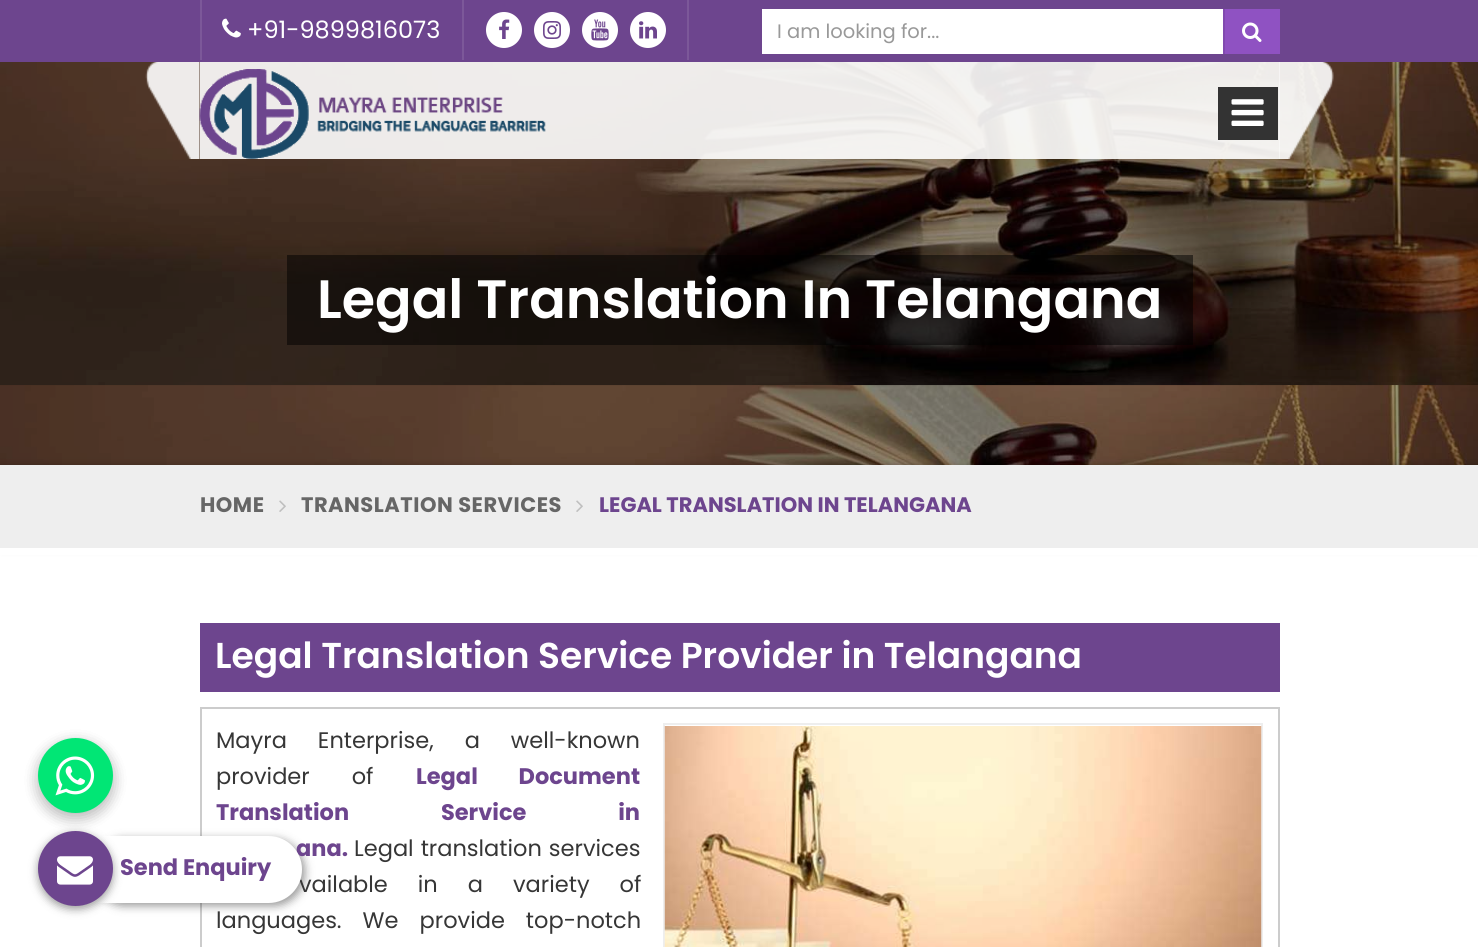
#include <cairo/cairo.h>
#include <math.h>
#include <stddef.h>

typedef struct { double x, y, w, h; unsigned color; } box_t;
static cairo_t *cr;

static void rgb(unsigned color)
{
	cairo_set_source_rgb(cr, (color >> 16) / 255.0, (color >> 8 & 255) / 255.0, (color & 255) / 255.0);
}

static void tracked(double x, double y, const char *s, double letter, double word)
{
	cairo_move_to(cr, x, y);
	while (*s) {
		char ch[5] = {0};
		int n = 0;
		do ch[n++] = *s++; while ((*s & 0xC0) == 0x80);
		cairo_show_text(cr, ch);
		cairo_rel_move_to(cr, letter + word * (*ch == ' '), 0);
	}
}

static void rrect(double x, double y, double w, double h, double r)
{
	cairo_new_sub_path(cr);
	cairo_arc(cr, x + w - r, y + h - r, r, 0, M_PI / 2);
	cairo_arc(cr, x + r, y + h - r, r, M_PI / 2, M_PI);
	cairo_arc(cr, x + r, y + r, r, M_PI, 1.5 * M_PI);
	cairo_arc(cr, x + w - r, y + r, r, 1.5 * M_PI, 2 * M_PI);
	cairo_close_path(cr);
}

static void soft_shadow(double x, double y, double w, double h, double r, double blur, double alpha)
{
	cairo_push_group_with_content(cr, CAIRO_CONTENT_ALPHA);
	cairo_set_operator(cr, CAIRO_OPERATOR_SOURCE);
	for (int i = 15; i >= -15 && fmin(w, h) + blur * i / 3 > 0; i -= 2) {
		double e = blur * i / 6;
		cairo_set_source_rgba(cr, 0, 0, 0, alpha * erfc((i - 1) / 8.5) / 2);
		rrect(x - e, y - e, w + 2 * e, h + 2 * e, fmax(0, fmin(r + e + blur * .6, fmin(w, h) / 2 + e)));
		cairo_fill(cr);
	}
	cairo_pattern_t *soft = cairo_pop_group(cr);
	cairo_mask(cr, soft);
	cairo_pattern_destroy(soft);
}

static void image(const char *path, double x, double y, double w, double h)
{
	cairo_surface_t *image = cairo_image_surface_create_from_png(path);
	cairo_save(cr);
	cairo_set_source_surface(cr, image, x, y);
	cairo_rectangle(cr, x, y, w, h);
	cairo_fill(cr);
	cairo_restore(cr);
	cairo_surface_destroy(image);
}

int main(void) {
	cairo_surface_t *surface = cairo_image_surface_create(CAIRO_FORMAT_RGB24, 1478, 947);
	cr = cairo_create(surface);
	cairo_font_options_t *options = cairo_font_options_create();
	cairo_font_options_set_hint_metrics(options, CAIRO_HINT_METRICS_OFF);
	cairo_font_options_set_hint_style(options, CAIRO_HINT_STYLE_NONE);
	cairo_set_font_options(cr, options);
	cairo_set_miter_limit(cr, 4);
	rgb(0xffffff);
	cairo_paint(cr);
	rgb(0x000000);
	soft_shadow(38, 743, 75, 75, 37.5, 7.5, 0.16);
	soft_shadow(38, 743, 75, 75, 37.5, 7.5, 0.16);
	rgb(0x01e675);
	cairo_arc(cr, 75.5, 775.5, 37.5, 0, 2 * M_PI);
	cairo_fill(cr);
	image("img/1.png", 55, 756, 40, 40);
	rgb(0x6d458e);
	cairo_rectangle(cr, 0, 0, 1478, 62);
	cairo_fill(cr);
	rgb(0x7c5899);
	cairo_rectangle(cr, 200, 0, 2, 60);
	cairo_fill(cr);
	image("img/2.png", 222, 18, 19, 20);
	cairo_rectangle(cr, 462, 0, 2, 60);
	cairo_fill(cr);
	rgb(0xffffff);
	cairo_arc(cr, 504, 30, 18, 0, 2 * M_PI);
	cairo_fill(cr);
	image("img/3.png", 499, 19, 11, 20);
	cairo_arc(cr, 552, 30, 18, 0, 2 * M_PI);
	cairo_fill(cr);
	image("img/4.png", 543, 21, 18, 18);
	cairo_arc(cr, 600, 30, 18, 0, 2 * M_PI);
	cairo_fill(cr);
	image("img/5.png", 591, 19, 18, 22);
	cairo_arc(cr, 648, 30, 18, 0, 2 * M_PI);
	cairo_fill(cr);
	image("img/6.png", 639, 21, 18, 18);
	{
		static const box_t items[] = {
			{687, 0, 2, 60, 0x7c5899},
			{762, 9, 461, 45, 0xffffff},
			{1225, 9, 55, 45, 0x8f52c2},
			{1223, 9, 2, 45, 0x814aaf},
		};
		for (size_t i = 0; i < sizeof items / sizeof *items; i++) {
			rgb(items[i].color);
			cairo_rectangle(cr, items[i].x, items[i].y, items[i].w, items[i].h);
			cairo_fill(cr);
		}
	}
	image("img/7.png", 1242, 22, 20, 20);
	image("img/12.png", 0, 62, 1478, 403);
	image("img/11.png", 1279, 62, 55, 97);
	cairo_set_source_rgba(cr, 1, 1, 1, 0.9);
	cairo_rectangle(cr, 200, 62, 1080, 97);
	cairo_fill(cr);
	image("img/8.png", 145, 62, 55, 97);
	image("img/9.png", 199, 69, 347, 90);
	rgb(0x333333);
	cairo_rectangle(cr, 1218, 87, 60, 53);
	cairo_fill(cr);
	image("img/10.png", 1231, 99, 33, 27);
	cairo_set_source_rgba(cr, 0, 0, 0, 0.5);
	cairo_rectangle(cr, 287, 255, 906, 90);
	cairo_fill(cr);
	rgb(0x000000);
	soft_shadow(0, 465, 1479, 83, 0, 4, 0.2);
	rgb(0xeeeeee);
	cairo_rectangle(cr, 0, 465, 1478, 83);
	cairo_fill(cr);
	image("img/13.png", 279, 500, 7, 12);
	image("img/13.png", 576, 500, 7, 12);
	rgb(0xffffff);
	cairo_rectangle(cr, 0, 548, 1478, 7);
	cairo_fill(cr);
	rgb(0x6d458e);
	cairo_rectangle(cr, 200, 623, 1080, 69);
	cairo_fill(cr);
	cairo_rectangle(cr, 201, 708, 1078, 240);
	rgb(0xcccccc);
	cairo_stroke(cr);
	cairo_rectangle(cr, 664, 724, 598, 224);
	rgb(0xeeeeee);
	cairo_stroke(cr);
	image("img/14.png", 664, 726, 598, 221);
	rgb(0x000000);
	soft_shadow(93, 839, 212, 67, 33.5, 4.5, 0.4);
	cairo_select_font_face(cr, "Poppins", CAIRO_FONT_SLANT_NORMAL, CAIRO_FONT_WEIGHT_NORMAL);
	cairo_set_font_size(cr, 24);
	rgb(0xffffff);
	cairo_move_to(cr, 247, 38);
	cairo_show_text(cr, "+91-9899816073");
	cairo_set_font_size(cr, 19.5);
	rgb(0x999999);
	cairo_move_to(cr, 777, 38);
	cairo_show_text(cr, "I am looking for...");
	cairo_select_font_face(cr, "Poppins SemiBold", CAIRO_FONT_SLANT_NORMAL, CAIRO_FONT_WEIGHT_NORMAL);
	cairo_set_font_size(cr, 54);
	rgb(0xffffff);
	cairo_move_to(cr, 317, 318);
	cairo_show_text(cr, "Legal Translation In Telangana");
	cairo_select_font_face(cr, "Poppins", CAIRO_FONT_SLANT_NORMAL, CAIRO_FONT_WEIGHT_BOLD);
	cairo_set_font_size(cr, 21);
	rgb(0x666666);
	tracked(200, 512, "HOME", 0.5, 0);
	tracked(301, 512, "TRANSLATION SERVICES", 0.5, 0);
	rgb(0x6d458e);
	cairo_move_to(cr, 599, 512);
	cairo_show_text(cr, "LEGAL TRANSLATION IN TELANGANA");
	cairo_select_font_face(cr, "Poppins SemiBold", CAIRO_FONT_SLANT_NORMAL, CAIRO_FONT_WEIGHT_NORMAL);
	cairo_set_font_size(cr, 36);
	rgb(0xffffff);
	cairo_move_to(cr, 215, 668);
	cairo_show_text(cr, "Legal Translation Service Provider in Telangana");
	cairo_select_font_face(cr, "Poppins", CAIRO_FONT_SLANT_NORMAL, CAIRO_FONT_WEIGHT_NORMAL);
	cairo_set_font_size(cr, 22.5);
	rgb(0x363636);
	tracked(216, 748, "Mayra Enterprise, a well-known", 0, 25);
	tracked(216, 784, "provider of", 0, 36);
	cairo_select_font_face(cr, "Poppins", CAIRO_FONT_SLANT_NORMAL, CAIRO_FONT_WEIGHT_BOLD);
	rgb(0x6d458e);
	tracked(416, 784, "Legal Document", 0, 36);
	tracked(216, 820, "Translation Service in", 0, 87);
	cairo_move_to(cr, 296, 856);
	cairo_show_text(cr, "ana.");
	cairo_select_font_face(cr, "Poppins", CAIRO_FONT_SLANT_NORMAL, CAIRO_FONT_WEIGHT_NORMAL);
	rgb(0x363636);
	tracked(354, 856, "Legal translation services", 0, 1);
	tracked(299, 892, "vailable in a variety of", 0, 24);
	tracked(216, 928, "languages. We provide top-notch", 0, 15);
	rgb(0xffffff);
	cairo_new_path(cr);
	cairo_move_to(cr, 90, 836);
	cairo_line_to(cr, 268.5, 836);
	cairo_curve_to(cr, 287, 836, 302, 851, 302, 869.5);
	cairo_curve_to(cr, 302, 888, 287, 903, 268.5, 903);
	cairo_line_to(cr, 90, 903);
	cairo_close_path(cr);
	cairo_fill(cr);
	rgb(0x000000);
	soft_shadow(38, 834, 75, 75, 37.5, 4.5, 0.4);
	rgb(0x6d458e);
	cairo_arc(cr, 75.5, 868.5, 37.5, 0, 2 * M_PI);
	cairo_fill(cr);
	image("img/15.png", 57, 856, 36, 29);
	cairo_select_font_face(cr, "Poppins", CAIRO_FONT_SLANT_NORMAL, CAIRO_FONT_WEIGHT_BOLD);
	cairo_move_to(cr, 120, 875);
	cairo_show_text(cr, "Send Enquiry");
	cairo_surface_write_to_png(surface, "page.png");
	cairo_font_options_destroy(options);
	cairo_destroy(cr);
	cairo_surface_destroy(surface);
	return 0;
}
